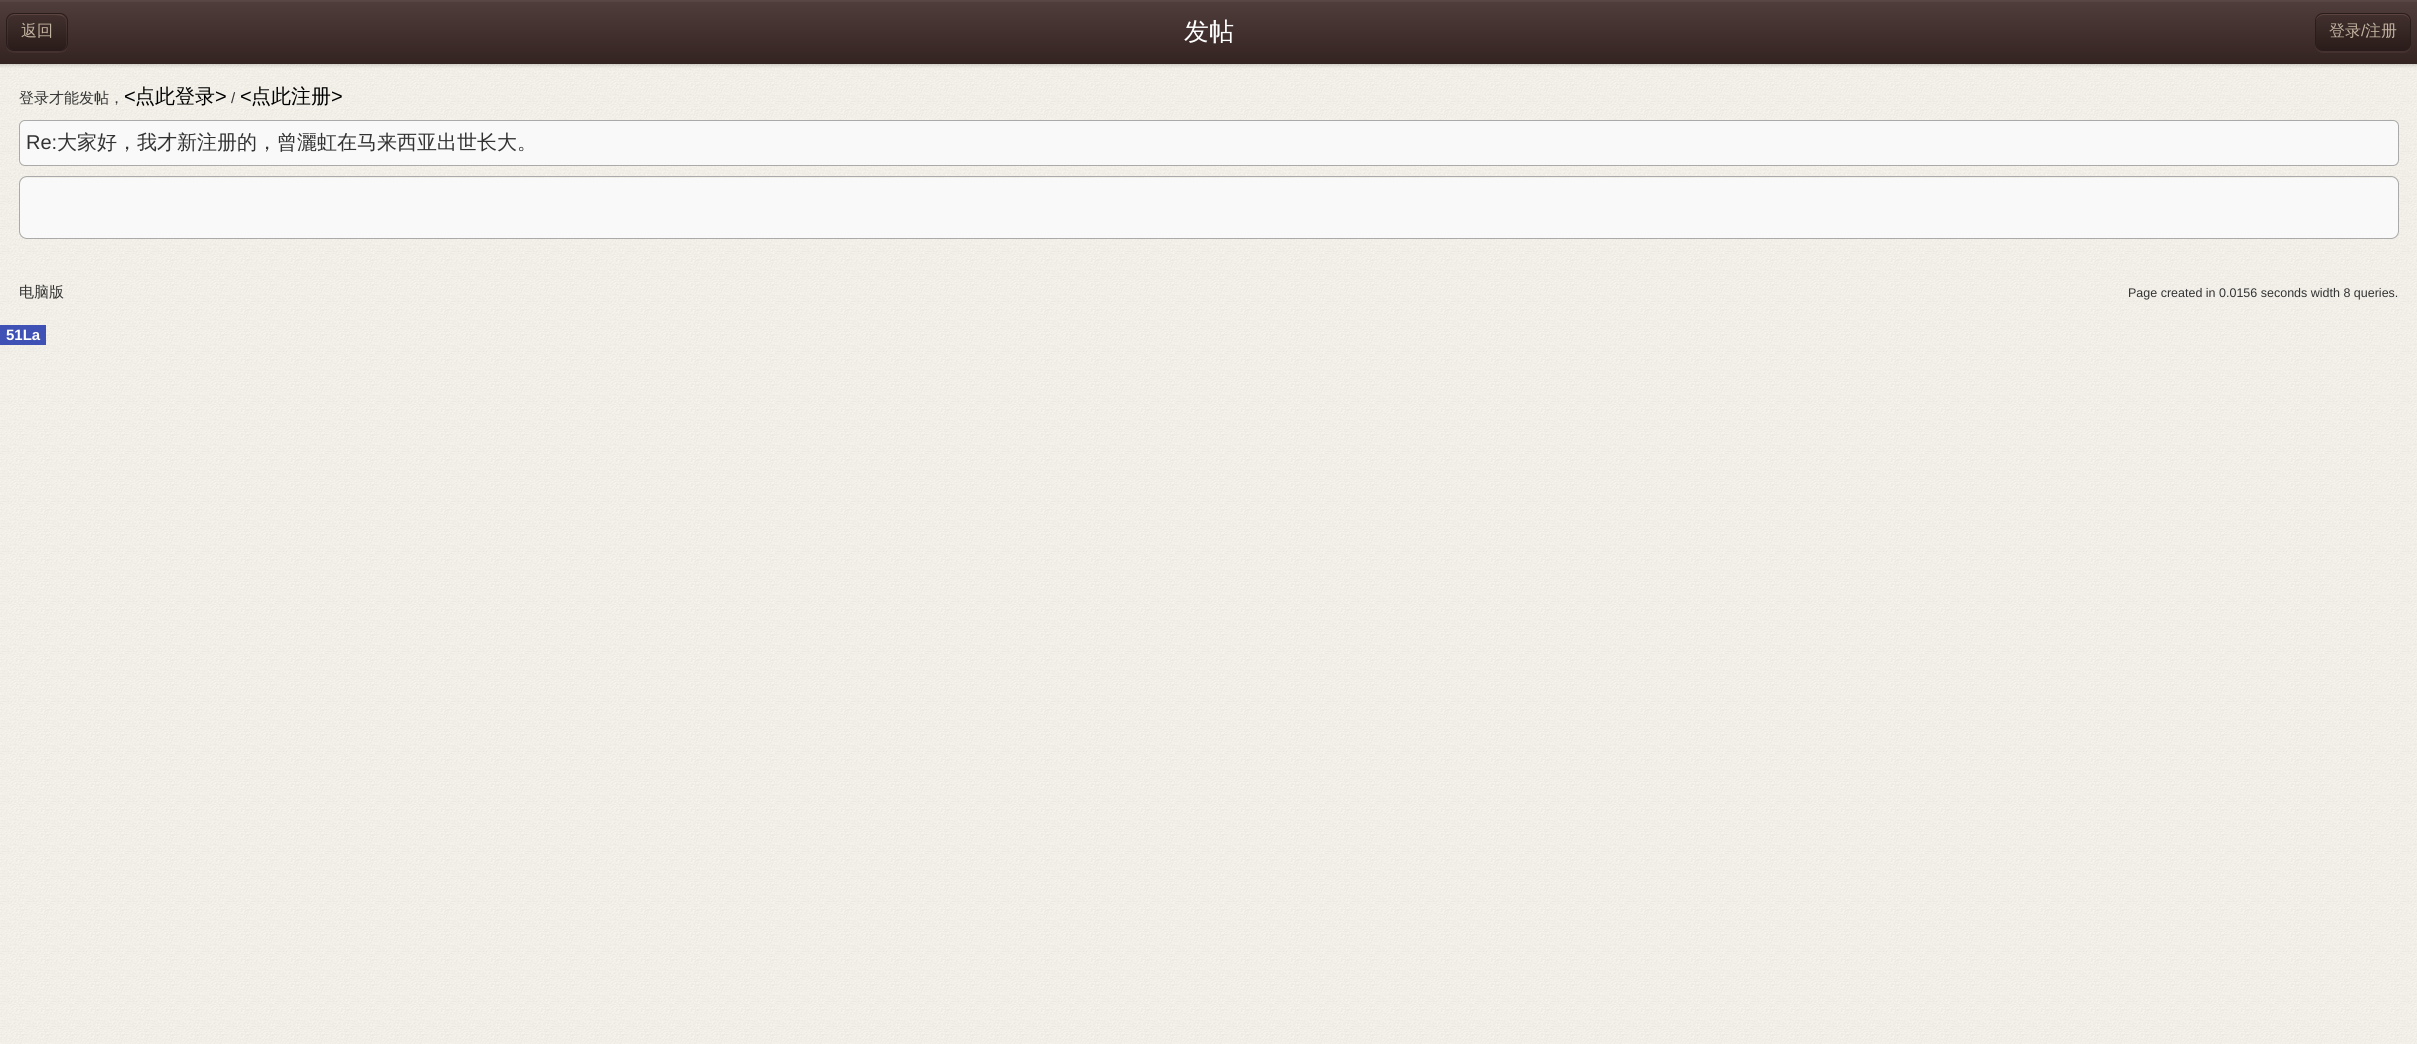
#include <cairo/cairo.h>
#include <math.h>
#include <stddef.h>

static cairo_t *cr;

static void rgb(unsigned color)
{
	cairo_set_source_rgb(cr, (color >> 16) / 255.0, (color >> 8 & 255) / 255.0, (color & 255) / 255.0);
}

static void rrect(double x, double y, double w, double h, double r)
{
	cairo_new_sub_path(cr);
	cairo_arc(cr, x + w - r, y + h - r, r, 0, M_PI / 2);
	cairo_arc(cr, x + r, y + h - r, r, M_PI / 2, M_PI);
	cairo_arc(cr, x + r, y + r, r, M_PI, 1.5 * M_PI);
	cairo_arc(cr, x + w - r, y + r, r, 1.5 * M_PI, 2 * M_PI);
	cairo_close_path(cr);
}

static void soft_shadow(double x, double y, double w, double h, double r, double blur, double alpha)
{
	cairo_push_group_with_content(cr, CAIRO_CONTENT_ALPHA);
	cairo_set_operator(cr, CAIRO_OPERATOR_SOURCE);
	for (int i = 15; i >= -15 && fmin(w, h) + blur * i / 3 > 0; i -= 2) {
		double e = blur * i / 6;
		cairo_set_source_rgba(cr, 0, 0, 0, alpha * erfc((i - 1) / 8.5) / 2);
		rrect(x - e, y - e, w + 2 * e, h + 2 * e, fmax(0, fmin(r + e + blur * .6, fmin(w, h) / 2 + e)));
		cairo_fill(cr);
	}
	cairo_pattern_t *soft = cairo_pop_group(cr);
	cairo_mask(cr, soft);
	cairo_pattern_destroy(soft);
}

static void image(const char *path, double x, double y, double w, double h)
{
	cairo_surface_t *image = cairo_image_surface_create_from_png(path);
	cairo_save(cr);
	cairo_set_source_surface(cr, image, x, y);
	cairo_rectangle(cr, x, y, w, h);
	cairo_fill(cr);
	cairo_restore(cr);
	cairo_surface_destroy(image);
}

int main(void) {
	cairo_surface_t *surface = cairo_image_surface_create(CAIRO_FORMAT_RGB24, 2417, 1044);
	cr = cairo_create(surface);
	cairo_font_options_t *options = cairo_font_options_create();
	cairo_font_options_set_hint_metrics(options, CAIRO_HINT_METRICS_OFF);
	cairo_font_options_set_hint_style(options, CAIRO_HINT_STYLE_NONE);
	cairo_set_font_options(cr, options);
	cairo_set_miter_limit(cr, 4);
	cairo_pattern_t *gradient;
	rgb(0xffffff);
	cairo_paint(cr);
	image("img/1.png", 0, 64, 2417, 980);
	rgb(0x000000);
	soft_shadow(0, 1, 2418, 64, 0, 2, 0.2);
	gradient = cairo_pattern_create_linear(1209, 1.2, 1209, 64);
	cairo_pattern_add_color_stop_rgba(gradient, 0, 0.349, 0.278, 0.271, 1);
	cairo_pattern_add_color_stop_rgba(gradient, 0.02, 0.31, 0.239, 0.231, 1);
	cairo_pattern_add_color_stop_rgba(gradient, 1, 0.2, 0.137, 0.129, 1);
	cairo_set_source(cr, gradient);
	cairo_pattern_destroy(gradient);
	cairo_rectangle(cr, 0, 1, 2417, 63);
	cairo_fill(cr);
	rgb(0x594745);
	cairo_rectangle(cr, 0, 0, 2417, 1);
	cairo_fill(cr);
	rgb(0x433230);
	cairo_new_path(cr);
	cairo_move_to(cr, 6, 20);
	cairo_line_to(cr, 6, 37);
	cairo_curve_to(cr, 6, 52, 7, 53, 22, 53);
	cairo_line_to(cr, 52, 53);
	cairo_curve_to(cr, 67, 53, 68, 52, 68, 37);
	cairo_line_to(cr, 68, 26);
	cairo_curve_to(cr, 68, 23, 68, 21, 67, 19);
	cairo_line_to(cr, 68, 36);
	cairo_curve_to(cr, 68, 50, 67, 51, 52, 51);
	cairo_line_to(cr, 22, 51);
	cairo_curve_to(cr, 7, 51, 6, 50, 6, 36);
	cairo_close_path(cr);
	cairo_fill(cr);
	gradient = cairo_pattern_create_linear(37, 14, 37, 50);
	cairo_pattern_add_color_stop_rgba(gradient, 0, 0.255, 0.188, 0.18, 1);
	cairo_pattern_add_color_stop_rgba(gradient, 1, 0.165, 0.11, 0.102, 1);
	cairo_set_source(cr, gradient);
	cairo_pattern_destroy(gradient);
	rrect(8, 14, 58, 36, 6);
	cairo_fill(cr);
	rrect(6.5, 13.5, 61, 37, 7.5);
	rgb(0x2a1c1a);
	cairo_set_line_width(cr, 1);
	cairo_stroke(cr);
	rgb(0x5c4540);
	cairo_set_fill_rule(cr, CAIRO_FILL_RULE_EVEN_ODD);
	cairo_new_path(cr);
	cairo_move_to(cr, 8, 32);
	cairo_line_to(cr, 8, 22);
	cairo_close_path(cr);
	cairo_move_to(cr, 16, 14);
	cairo_curve_to(cr, 11, 14, 8, 17, 8, 22);
	cairo_curve_to(cr, 8, 18, 10, 15, 16, 15);
	cairo_line_to(cr, 51, 15);
	cairo_curve_to(cr, 64, 15, 66, 16, 66, 26);
	cairo_line_to(cr, 66, 32);
	cairo_curve_to(cr, 66, 25, 68, 14, 58, 14);
	cairo_close_path(cr);
	cairo_fill(cr);
	rgb(0x2a1c1a);
	cairo_set_fill_rule(cr, CAIRO_FILL_RULE_WINDING);
	cairo_new_path(cr);
	cairo_move_to(cr, 16, 50);
	cairo_line_to(cr, 60, 50);
	cairo_curve_to(cr, 68, 48, 66, 38, 66, 32);
	cairo_line_to(cr, 66, 38);
	cairo_curve_to(cr, 66, 48, 64, 49, 51, 49);
	cairo_line_to(cr, 23, 49);
	cairo_curve_to(cr, 10, 49, 8, 48, 8, 38);
	cairo_line_to(cr, 8, 32);
	cairo_curve_to(cr, 8, 39, 6, 50, 16, 50);
	cairo_close_path(cr);
	cairo_fill(cr);
	rgb(0x433230);
	cairo_new_path(cr);
	cairo_move_to(cr, 2315, 43);
	cairo_line_to(cr, 2315, 45);
	cairo_curve_to(cr, 2315, 49, 2319, 53, 2323, 53);
	cairo_line_to(cr, 2403, 53);
	cairo_curve_to(cr, 2407, 53, 2411, 50, 2411, 45);
	cairo_curve_to(cr, 2410, 49, 2407, 51, 2403, 51);
	cairo_line_to(cr, 2323, 51);
	cairo_curve_to(cr, 2319, 51, 2315, 48, 2315, 43);
	cairo_close_path(cr);
	cairo_fill(cr);
	gradient = cairo_pattern_create_linear(2363, 14, 2363, 50);
	cairo_pattern_add_color_stop_rgba(gradient, 0, 0.255, 0.188, 0.18, 1);
	cairo_pattern_add_color_stop_rgba(gradient, 1, 0.165, 0.11, 0.102, 1);
	cairo_set_source(cr, gradient);
	cairo_pattern_destroy(gradient);
	rrect(2316, 14, 94, 36, 6);
	cairo_fill(cr);
	rrect(2315.5, 13.5, 95, 37, 7.5);
	rgb(0x2a1c1a);
	cairo_stroke(cr);
	rgb(0x5c4540);
	cairo_new_path(cr);
	cairo_move_to(cr, 2324, 14);
	cairo_line_to(cr, 2402, 14);
	cairo_curve_to(cr, 2406, 14, 2410, 17, 2410, 22);
	cairo_curve_to(cr, 2410, 18, 2406, 15, 2402, 15);
	cairo_line_to(cr, 2324, 15);
	cairo_curve_to(cr, 2321, 15, 2317, 17, 2316, 20);
	cairo_curve_to(cr, 2316, 17, 2321, 14, 2324, 14);
	cairo_close_path(cr);
	cairo_fill(cr);
	rgb(0xf9f9f9);
	rrect(19.5, 120.5, 2379, 45, 5.5);
	cairo_fill_preserve(cr);
	rgb(0xaaaaaa);
	cairo_stroke(cr);
	rgb(0xf9f9f9);
	rrect(20, 178, 2378, 60, 6);
	cairo_fill(cr);
	rrect(19.5, 176.5, 2379, 62, 7.5);
	rgb(0xaaaaaa);
	cairo_stroke(cr);
	rgb(0x3f51b5);
	cairo_rectangle(cr, 0, 325, 46, 20);
	cairo_fill(cr);
	cairo_select_font_face(cr, "WenQuanYi Zen Hei Medium", CAIRO_FONT_SLANT_NORMAL, CAIRO_FONT_WEIGHT_NORMAL);
	cairo_set_font_size(cr, 16);
	rgb(0xc3b3a1);
	cairo_move_to(cr, 21, 36);
	cairo_show_text(cr, "返回");
	cairo_set_font_size(cr, 25);
	rgb(0xffffff);
	cairo_move_to(cr, 1184, 40);
	cairo_show_text(cr, "发帖");
	cairo_set_font_size(cr, 16);
	rgb(0xc3b3a1);
	cairo_move_to(cr, 2329, 36);
	cairo_show_text(cr, "登录");
	cairo_select_font_face(cr, "Liberation Sans", CAIRO_FONT_SLANT_NORMAL, CAIRO_FONT_WEIGHT_NORMAL);
	cairo_move_to(cr, 2361, 36);
	cairo_show_text(cr, "/");
	cairo_select_font_face(cr, "WenQuanYi Zen Hei Medium", CAIRO_FONT_SLANT_NORMAL, CAIRO_FONT_WEIGHT_NORMAL);
	cairo_move_to(cr, 2365, 36);
	cairo_show_text(cr, "注册");
	cairo_set_font_size(cr, 15);
	rgb(0x333333);
	cairo_move_to(cr, 19, 103);
	cairo_show_text(cr, "登录才能发帖，");
	cairo_select_font_face(cr, "Liberation Sans", CAIRO_FONT_SLANT_NORMAL, CAIRO_FONT_WEIGHT_NORMAL);
	cairo_set_font_size(cr, 20);
	rgb(0x000000);
	cairo_move_to(cr, 124, 103);
	cairo_show_text(cr, "<");
	cairo_select_font_face(cr, "WenQuanYi Zen Hei Medium", CAIRO_FONT_SLANT_NORMAL, CAIRO_FONT_WEIGHT_NORMAL);
	cairo_move_to(cr, 135, 103);
	cairo_show_text(cr, "点此登录");
	cairo_select_font_face(cr, "Liberation Sans", CAIRO_FONT_SLANT_NORMAL, CAIRO_FONT_WEIGHT_NORMAL);
	cairo_move_to(cr, 215, 103);
	cairo_show_text(cr, ">");
	cairo_set_font_size(cr, 15);
	rgb(0x333333);
	cairo_move_to(cr, 231, 103);
	cairo_show_text(cr, "/");
	cairo_set_font_size(cr, 20);
	rgb(0x000000);
	cairo_move_to(cr, 240, 103);
	cairo_show_text(cr, "<");
	cairo_select_font_face(cr, "WenQuanYi Zen Hei Medium", CAIRO_FONT_SLANT_NORMAL, CAIRO_FONT_WEIGHT_NORMAL);
	cairo_move_to(cr, 251, 103);
	cairo_show_text(cr, "点此注册");
	cairo_select_font_face(cr, "Liberation Sans", CAIRO_FONT_SLANT_NORMAL, CAIRO_FONT_WEIGHT_NORMAL);
	cairo_move_to(cr, 331, 103);
	cairo_show_text(cr, ">");
	rgb(0x333333);
	cairo_move_to(cr, 26, 149);
	cairo_show_text(cr, "Re:");
	cairo_select_font_face(cr, "WenQuanYi Zen Hei Medium", CAIRO_FONT_SLANT_NORMAL, CAIRO_FONT_WEIGHT_NORMAL);
	cairo_move_to(cr, 57, 149);
	cairo_show_text(cr, "大家好，我才新注册的，曾灑虹在马来西亚出世长大。");
	cairo_set_font_size(cr, 15);
	cairo_move_to(cr, 19, 297);
	cairo_show_text(cr, "电脑版");
	cairo_select_font_face(cr, "Liberation Sans", CAIRO_FONT_SLANT_NORMAL, CAIRO_FONT_WEIGHT_NORMAL);
	cairo_set_font_size(cr, 12.5);
	cairo_move_to(cr, 2128, 297);
	cairo_show_text(cr, "Page created in 0.0156 seconds width 8 queries.");
	cairo_select_font_face(cr, "Liberation Sans", CAIRO_FONT_SLANT_NORMAL, CAIRO_FONT_WEIGHT_BOLD);
	cairo_set_font_size(cr, 15);
	rgb(0xffffff);
	cairo_move_to(cr, 6, 340);
	cairo_show_text(cr, "51La");
	cairo_surface_write_to_png(surface, "page.png");
	cairo_font_options_destroy(options);
	cairo_destroy(cr);
	cairo_surface_destroy(surface);
	return 0;
}
